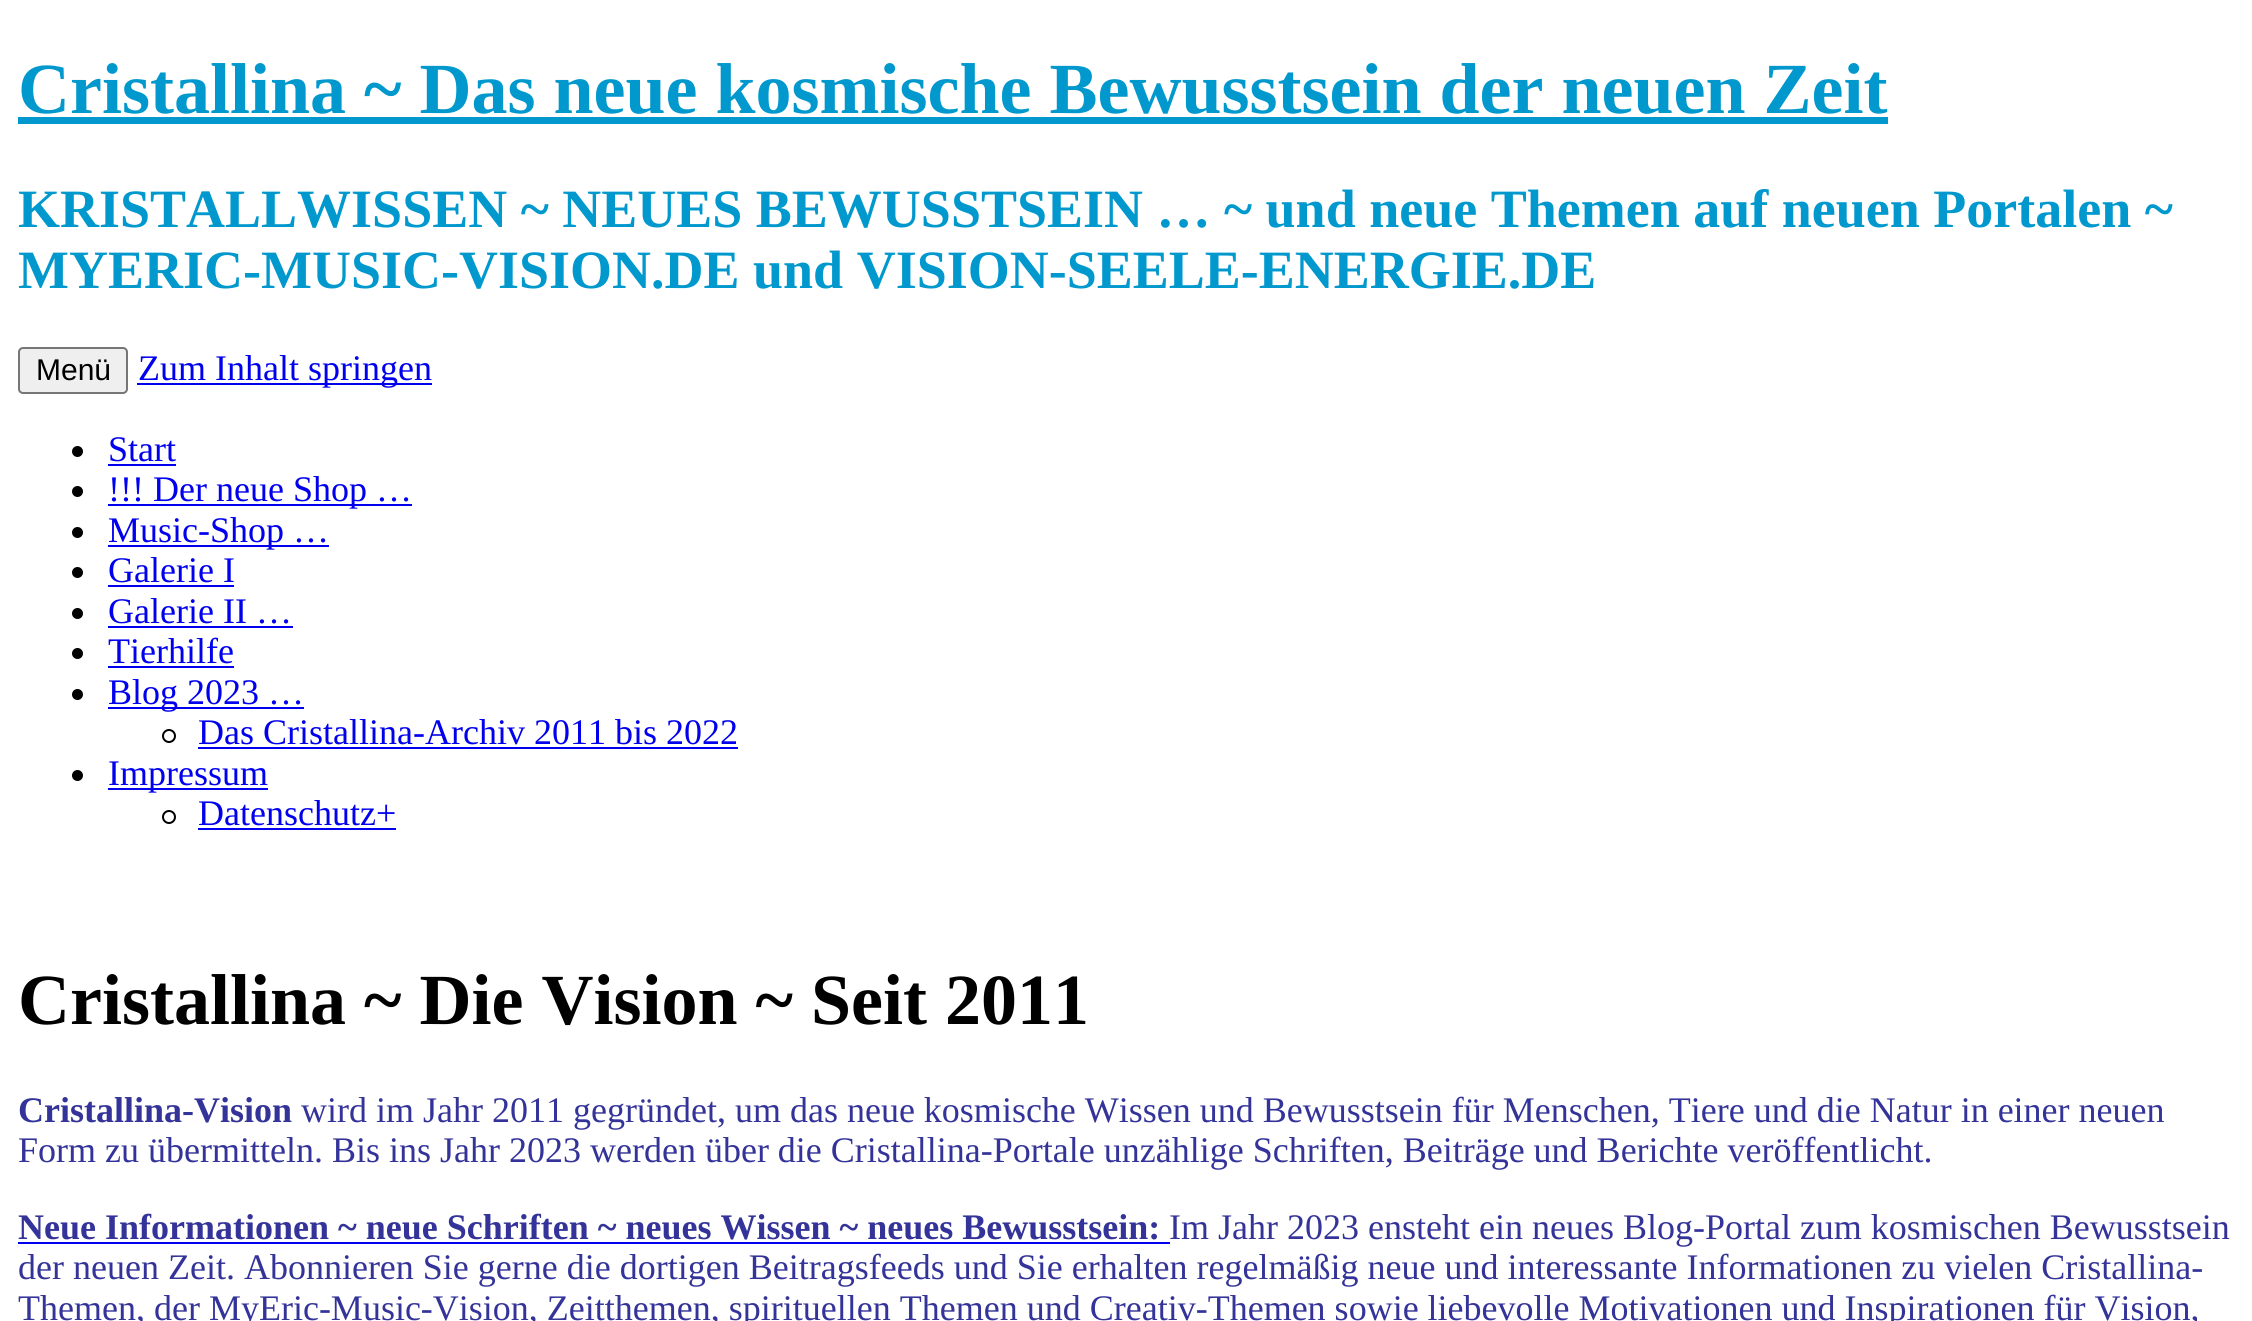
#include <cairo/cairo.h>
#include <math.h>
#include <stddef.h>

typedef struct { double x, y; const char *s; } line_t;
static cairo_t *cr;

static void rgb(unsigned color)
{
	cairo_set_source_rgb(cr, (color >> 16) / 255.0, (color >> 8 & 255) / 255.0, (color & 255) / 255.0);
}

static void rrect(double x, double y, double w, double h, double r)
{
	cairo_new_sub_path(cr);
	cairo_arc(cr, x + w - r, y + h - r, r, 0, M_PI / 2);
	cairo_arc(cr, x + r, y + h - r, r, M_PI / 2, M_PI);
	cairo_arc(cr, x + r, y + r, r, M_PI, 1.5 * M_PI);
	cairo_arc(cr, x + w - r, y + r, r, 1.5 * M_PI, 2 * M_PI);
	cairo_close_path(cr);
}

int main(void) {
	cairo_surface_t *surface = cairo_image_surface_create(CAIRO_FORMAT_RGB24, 2252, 1321);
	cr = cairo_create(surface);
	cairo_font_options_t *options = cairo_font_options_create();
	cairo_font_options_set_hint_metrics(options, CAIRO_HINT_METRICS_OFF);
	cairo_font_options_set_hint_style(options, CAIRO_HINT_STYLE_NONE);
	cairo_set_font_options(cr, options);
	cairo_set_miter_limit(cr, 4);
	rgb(0xffffff);
	cairo_paint(cr);
	rgb(0x0098cd);
	cairo_rectangle(cr, 18, 117, 1870, 7);
	cairo_fill(cr);
	rgb(0xefefef);
	rrect(19, 348, 108, 45, 4);
	cairo_fill_preserve(cr);
	rgb(0x767676);
	cairo_stroke(cr);
	rgb(0x0000ee);
	cairo_rectangle(cr, 137, 383, 295, 2);
	cairo_fill(cr);
	rgb(0x000000);
	cairo_arc(cr, 77.5, 451.5, 5.5, 0, 2 * M_PI);
	cairo_fill(cr);
	rgb(0x0000ee);
	cairo_rectangle(cr, 108, 464, 68, 2);
	cairo_fill(cr);
	rgb(0x000000);
	cairo_arc(cr, 77.5, 491.5, 5.5, 0, 2 * M_PI);
	cairo_fill(cr);
	rgb(0x0000ee);
	cairo_rectangle(cr, 108, 504, 304, 2);
	cairo_fill(cr);
	rgb(0x000000);
	cairo_arc(cr, 77.5, 532.5, 5.5, 0, 2 * M_PI);
	cairo_fill(cr);
	rgb(0x0000ee);
	cairo_rectangle(cr, 108, 545, 221, 2);
	cairo_fill(cr);
	rgb(0x000000);
	cairo_arc(cr, 77.5, 572.5, 5.5, 0, 2 * M_PI);
	cairo_fill(cr);
	rgb(0x0000ee);
	cairo_rectangle(cr, 108, 585, 126, 2);
	cairo_fill(cr);
	rgb(0x000000);
	cairo_arc(cr, 77.5, 613.5, 5.5, 0, 2 * M_PI);
	cairo_fill(cr);
	rgb(0x0000ee);
	cairo_rectangle(cr, 108, 626, 185, 2);
	cairo_fill(cr);
	rgb(0x000000);
	cairo_arc(cr, 77.5, 653.5, 5.5, 0, 2 * M_PI);
	cairo_fill(cr);
	rgb(0x0000ee);
	cairo_rectangle(cr, 108, 666, 126, 2);
	cairo_fill(cr);
	rgb(0x000000);
	cairo_arc(cr, 77.5, 694.5, 5.5, 0, 2 * M_PI);
	cairo_fill(cr);
	rgb(0x0000ee);
	cairo_rectangle(cr, 108, 707, 196, 2);
	cairo_fill(cr);
	cairo_arc(cr, 169, 736, 6, 0, 2 * M_PI);
	rgb(0x000000);
	cairo_stroke(cr);
	rgb(0x0000ee);
	cairo_rectangle(cr, 198, 747, 540, 2);
	cairo_fill(cr);
	rgb(0x000000);
	cairo_arc(cr, 77.5, 775.5, 5.5, 0, 2 * M_PI);
	cairo_fill(cr);
	rgb(0x0000ee);
	cairo_rectangle(cr, 108, 788, 160, 2);
	cairo_fill(cr);
	cairo_arc(cr, 169, 817, 6, 0, 2 * M_PI);
	rgb(0x000000);
	cairo_stroke(cr);
	rgb(0x0000ee);
	cairo_rectangle(cr, 198, 828, 198, 2);
	cairo_fill(cr);
	cairo_rectangle(cr, 18, 1242, 1152, 2);
	cairo_fill(cr);
	cairo_select_font_face(cr, "Liberation Serif", CAIRO_FONT_SLANT_NORMAL, CAIRO_FONT_WEIGHT_BOLD);
	cairo_set_font_size(cr, 72);
	rgb(0x0098cd);
	cairo_move_to(cr, 18, 113);
	cairo_show_text(cr, "Cristallina ~ Das neue kosmische Bewusstsein der neuen Zeit");
	cairo_set_font_size(cr, 54);
	cairo_move_to(cr, 18, 227);
	cairo_show_text(cr, "KRISTALLWISSEN ~ NEUES BEWUSSTSEIN … ~ und neue Themen auf neuen Portalen ~");
	cairo_move_to(cr, 18, 288);
	cairo_show_text(cr, "MYERIC-MUSIC-VISION.DE und VISION-SEELE-ENERGIE.DE");
	cairo_select_font_face(cr, "Liberation Sans", CAIRO_FONT_SLANT_NORMAL, CAIRO_FONT_WEIGHT_NORMAL);
	cairo_set_font_size(cr, 30);
	rgb(0x000000);
	cairo_move_to(cr, 36, 380);
	cairo_show_text(cr, "Menü");
	cairo_select_font_face(cr, "Liberation Serif", CAIRO_FONT_SLANT_NORMAL, CAIRO_FONT_WEIGHT_NORMAL);
	cairo_set_font_size(cr, 36);
	rgb(0x0000ee);
	{
		static const line_t items[] = {
			{138, 380, "Zum Inhalt springen"},
			{108, 461, "Start"},
			{108, 501, "!!! Der neue Shop …"},
			{108, 542, "Music-Shop …"},
			{108, 582, "Galerie I"},
			{108, 623, "Galerie II …"},
			{108, 663, "Tierhilfe"},
			{108, 704, "Blog 2023 …"},
			{198, 744, "Das Cristallina-Archiv 2011 bis 2022"},
			{108, 785, "Impressum"},
			{198, 825, "Datenschutz+"},
		};
		for (size_t i = 0; i < sizeof items / sizeof *items; i++) {
			cairo_move_to(cr, items[i].x, items[i].y);
			cairo_show_text(cr, items[i].s);
		}
	}
	cairo_select_font_face(cr, "Liberation Serif", CAIRO_FONT_SLANT_NORMAL, CAIRO_FONT_WEIGHT_BOLD);
	cairo_set_font_size(cr, 72);
	rgb(0x000000);
	cairo_move_to(cr, 18, 1024);
	cairo_show_text(cr, "Cristallina ~ Die Vision ~ Seit 2011");
	cairo_set_font_size(cr, 36);
	rgb(0x333399);
	cairo_move_to(cr, 18, 1122);
	cairo_show_text(cr, "Cristallina-Vision");
	cairo_select_font_face(cr, "Liberation Serif", CAIRO_FONT_SLANT_NORMAL, CAIRO_FONT_WEIGHT_NORMAL);
	cairo_move_to(cr, 301, 1122);
	cairo_show_text(cr, "wird im Jahr 2011 gegründet, um das neue kosmische Wissen und Bewusstsein für Menschen, Tiere und die Natur in einer neuen");
	cairo_move_to(cr, 18, 1162);
	cairo_show_text(cr, "Form zu übermitteln. Bis ins Jahr 2023 werden über die Cristallina-Portale unzählige Schriften, Beiträge und Berichte veröffentlicht.");
	cairo_select_font_face(cr, "Liberation Serif", CAIRO_FONT_SLANT_NORMAL, CAIRO_FONT_WEIGHT_BOLD);
	cairo_move_to(cr, 18, 1239);
	cairo_show_text(cr, "Neue Informationen ~ neue Schriften ~ neues Wissen ~ neues Bewusstsein:");
	cairo_select_font_face(cr, "Liberation Serif", CAIRO_FONT_SLANT_NORMAL, CAIRO_FONT_WEIGHT_NORMAL);
	{
		static const line_t items[] = {
			{1169, 1239, "Im Jahr 2023 ensteht ein neues Blog-Portal zum kosmischen Bewusstsein"},
			{18, 1279, "der neuen Zeit. Abonnieren Sie gerne die dortigen Beitragsfeeds und Sie erhalten regelmäßig neue und interessante Informationen zu vielen Cristallina-"},
			{18, 1320, "Themen, der MyEric-Music-Vision, Zeitthemen, spirituellen Themen und Creativ-Themen sowie liebevolle Motivationen und Inspirationen für Vision,"},
		};
		for (size_t i = 0; i < sizeof items / sizeof *items; i++) {
			cairo_move_to(cr, items[i].x, items[i].y);
			cairo_show_text(cr, items[i].s);
		}
	}
	cairo_surface_write_to_png(surface, "page.png");
	cairo_font_options_destroy(options);
	cairo_destroy(cr);
	cairo_surface_destroy(surface);
	return 0;
}
